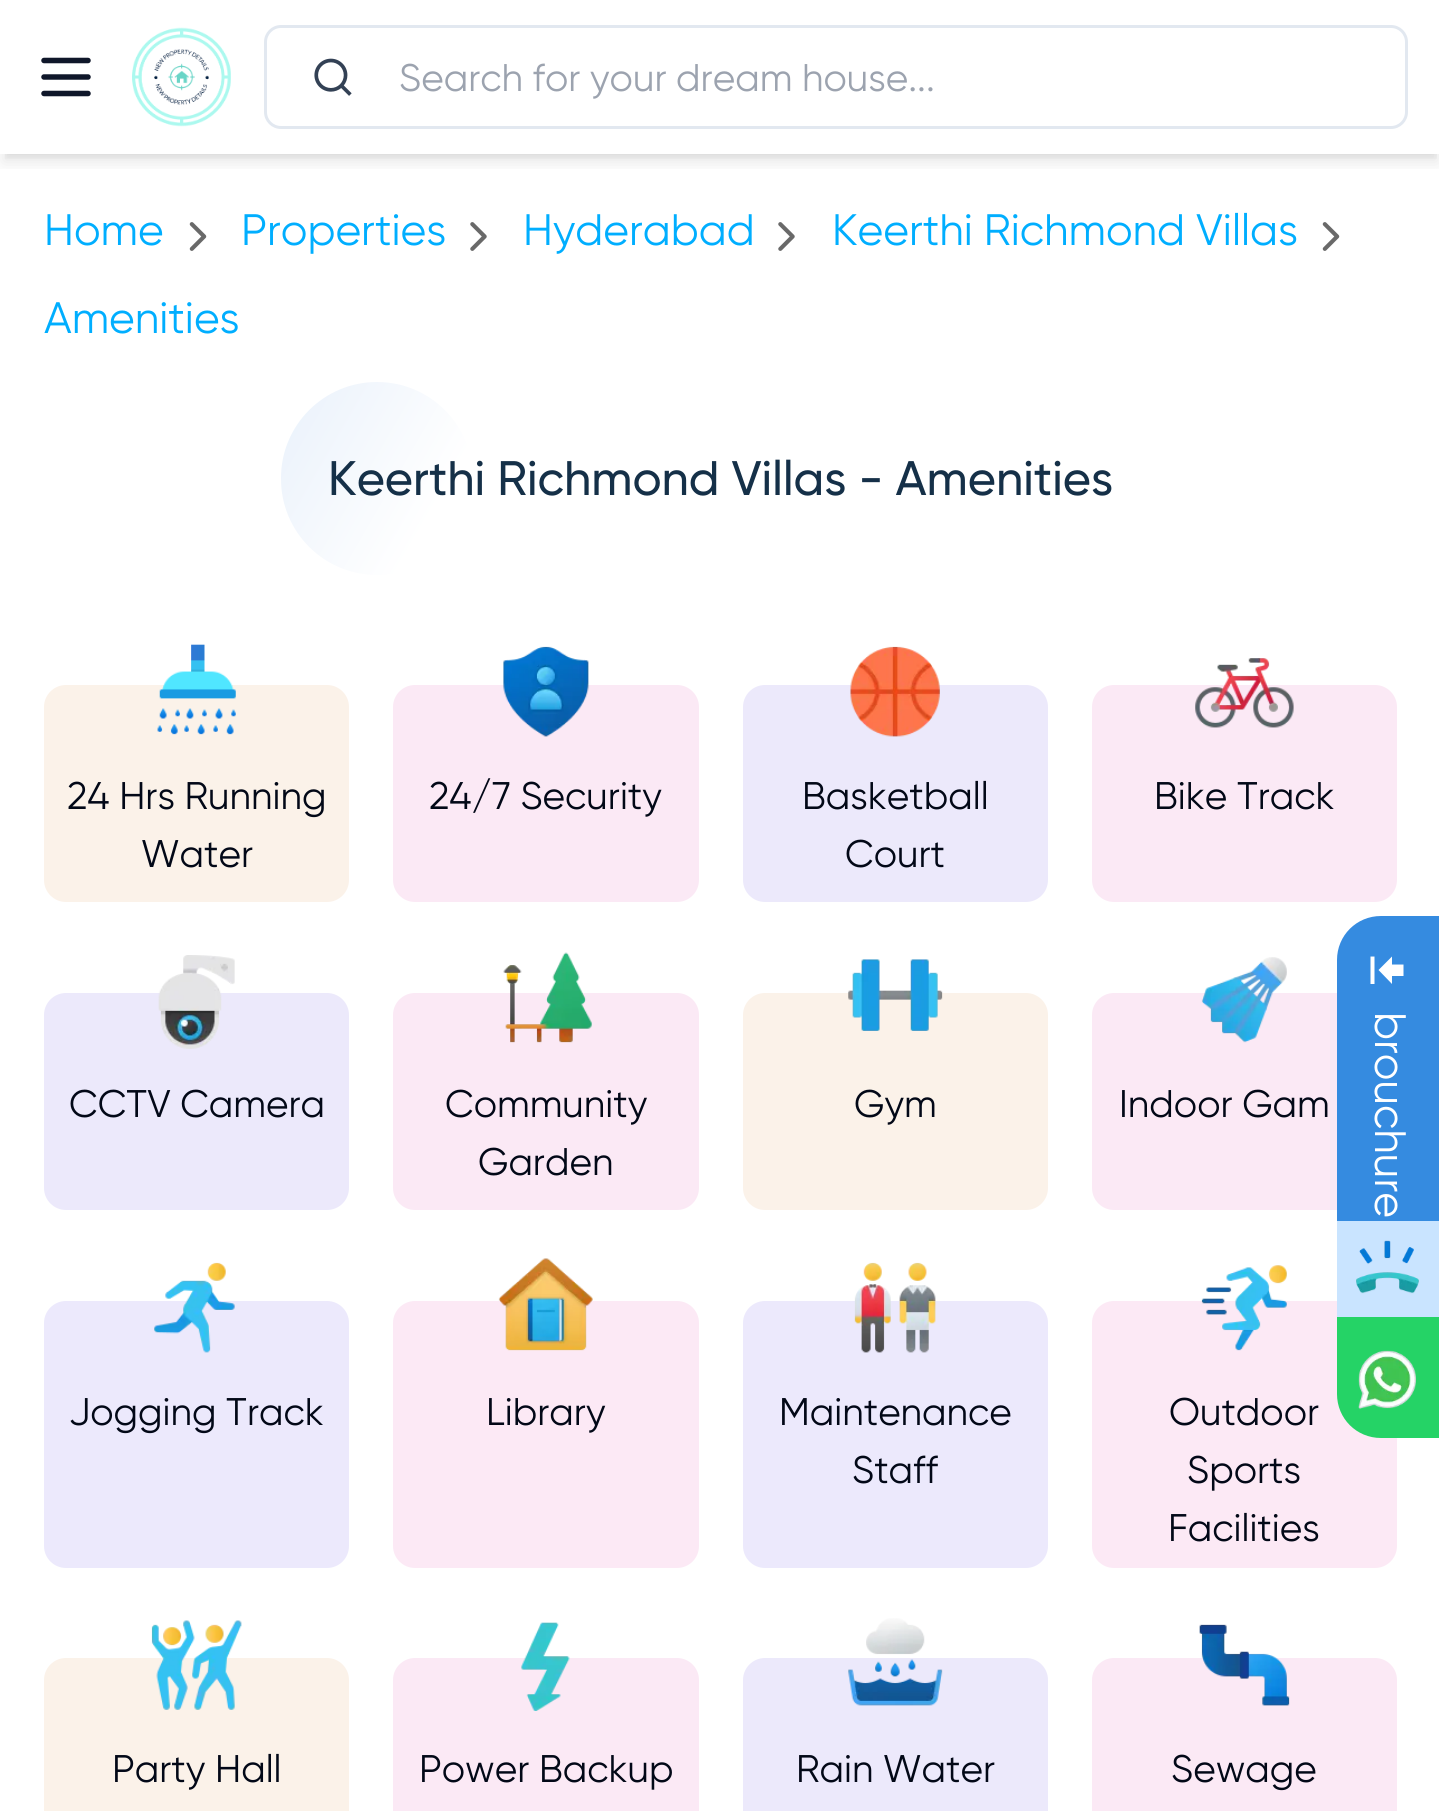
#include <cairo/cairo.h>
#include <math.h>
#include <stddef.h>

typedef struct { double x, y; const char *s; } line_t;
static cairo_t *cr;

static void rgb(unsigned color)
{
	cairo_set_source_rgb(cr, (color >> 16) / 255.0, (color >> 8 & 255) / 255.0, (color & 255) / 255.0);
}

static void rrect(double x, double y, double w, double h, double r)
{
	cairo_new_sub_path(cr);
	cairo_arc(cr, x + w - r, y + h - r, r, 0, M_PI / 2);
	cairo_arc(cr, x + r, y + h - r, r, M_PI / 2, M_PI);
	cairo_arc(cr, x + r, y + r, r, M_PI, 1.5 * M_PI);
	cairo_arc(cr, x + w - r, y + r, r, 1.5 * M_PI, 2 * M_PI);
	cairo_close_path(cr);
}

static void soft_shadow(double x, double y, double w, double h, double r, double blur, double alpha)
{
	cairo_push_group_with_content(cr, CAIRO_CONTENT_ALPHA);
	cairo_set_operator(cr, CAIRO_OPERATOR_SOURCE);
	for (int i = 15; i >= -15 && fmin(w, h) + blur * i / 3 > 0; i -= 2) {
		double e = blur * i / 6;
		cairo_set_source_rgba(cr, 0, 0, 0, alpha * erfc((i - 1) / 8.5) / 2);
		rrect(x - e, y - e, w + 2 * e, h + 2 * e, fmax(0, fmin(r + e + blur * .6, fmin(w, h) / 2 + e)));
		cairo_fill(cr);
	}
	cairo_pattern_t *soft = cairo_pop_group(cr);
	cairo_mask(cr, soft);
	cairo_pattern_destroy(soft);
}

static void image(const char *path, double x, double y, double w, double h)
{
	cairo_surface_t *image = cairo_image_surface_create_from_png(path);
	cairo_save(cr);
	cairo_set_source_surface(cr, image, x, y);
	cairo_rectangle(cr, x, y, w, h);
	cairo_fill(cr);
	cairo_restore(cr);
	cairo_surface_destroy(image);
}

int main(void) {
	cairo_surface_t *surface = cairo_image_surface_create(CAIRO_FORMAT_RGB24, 1439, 1811);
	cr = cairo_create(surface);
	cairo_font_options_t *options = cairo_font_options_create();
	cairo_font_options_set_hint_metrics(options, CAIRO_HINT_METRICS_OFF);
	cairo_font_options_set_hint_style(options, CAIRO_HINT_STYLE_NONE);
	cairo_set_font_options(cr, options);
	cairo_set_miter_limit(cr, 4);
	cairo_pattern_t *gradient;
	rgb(0xffffff);
	cairo_paint(cr);
	cairo_save(cr);
	cairo_rectangle(cr, 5, 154, 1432, 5);
	cairo_clip(cr);
	rgb(0x000000);
	soft_shadow(6, 11, 1430, 143, 0, 5.5, 0.1);
	cairo_restore(cr);
	cairo_save(cr);
	cairo_rectangle(cr, 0, 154, 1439, 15);
	cairo_clip(cr);
	rgb(0x000000);
	soft_shadow(3, 14, 1435, 148, 0, 8, 0.1);
	cairo_restore(cr);
	cairo_new_path(cr);
	cairo_move_to(cr, 44, 77);
	cairo_line_to(cr, 88, 77);
	cairo_move_to(cr, 44, 60.5);
	cairo_line_to(cr, 88, 60.5);
	cairo_move_to(cr, 44, 93.5);
	cairo_line_to(cr, 88, 93.5);
	rgb(0x0f172a);
	cairo_set_line_width(cr, 5.5);
	cairo_set_line_cap(cr, CAIRO_LINE_CAP_ROUND);
	cairo_set_line_join(cr, CAIRO_LINE_JOIN_ROUND);
	cairo_stroke(cr);
	image("img/1.png", 132, 27, 99, 100);
	rrect(265.5, 26.5, 1141, 101, 15.5);
	rgb(0xe2e8f0);
	cairo_set_line_width(cr, 3);
	cairo_set_line_cap(cr, CAIRO_LINE_CAP_BUTT);
	cairo_set_line_join(cr, CAIRO_LINE_JOIN_MITER);
	cairo_stroke(cr);
	image("img/2.png", 314, 58, 38, 38);
	image("img/3.png", 189, 222, 18, 29);
	image("img/4.png", 470, 222, 17, 29);
	image("img/4.png", 778, 222, 17, 29);
	image("img/3.png", 1322, 222, 18, 29);
	gradient = cairo_pattern_create_linear(263, 412, 491, 544);
	cairo_pattern_add_color_stop_rgba(gradient, 0, 0.914, 0.945, 0.984, 1);
	cairo_pattern_add_color_stop_rgba(gradient, 0.75, 1, 1, 1, 1);
	cairo_set_source(cr, gradient);
	cairo_pattern_destroy(gradient);
	rrect(281, 382, 192, 193, 96);
	cairo_fill(cr);
	rgb(0xfbf2e9);
	rrect(44, 685, 305, 217, 22);
	cairo_fill(cr);
	image("img/5.png", 157, 644, 79, 91);
	rgb(0xfbe9f5);
	rrect(393, 685, 306, 217, 22);
	cairo_fill(cr);
	image("img/6.png", 503, 646, 86, 91);
	rgb(0xece9fb);
	rrect(743, 685, 305, 217, 22);
	cairo_fill(cr);
	image("img/7.png", 850, 646, 90, 91);
	rgb(0xfbe9f5);
	rrect(1092, 685, 305, 217, 22);
	cairo_fill(cr);
	image("img/8.png", 1195, 658, 99, 70);
	rgb(0xece9fb);
	rrect(44, 993, 305, 217, 22);
	cairo_fill(cr);
	image("img/9.png", 158, 955, 77, 94);
	rgb(0xfbe9f5);
	rrect(393, 993, 306, 217, 22);
	cairo_fill(cr);
	image("img/10.png", 503, 952, 89, 91);
	rgb(0xfbf2e9);
	rrect(743, 993, 305, 217, 22);
	cairo_fill(cr);
	image("img/11.png", 848, 959, 95, 72);
	rgb(0xfbe9f5);
	rrect(1092, 993, 305, 217, 22);
	cairo_fill(cr);
	image("img/12.png", 1201, 957, 86, 86);
	rgb(0xece9fc);
	rrect(44, 1301, 305, 267, 22);
	cairo_fill(cr);
	image("img/13.png", 154, 1262, 81, 91);
	rgb(0xfce9f5);
	rrect(393, 1301, 306, 267, 22);
	cairo_fill(cr);
	image("img/14.png", 498, 1258, 95, 93);
	rgb(0xece9fc);
	rrect(743, 1301, 305, 267, 22);
	cairo_fill(cr);
	image("img/15.png", 854, 1262, 82, 91);
	rgb(0xfce9f5);
	rrect(1092, 1301, 305, 267, 22);
	cairo_fill(cr);
	image("img/16.png", 1201, 1265, 86, 86);
	rgb(0xfbf2e9);
	rrect(44, 1658, 305, 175, 22);
	cairo_fill(cr);
	image("img/17.png", 151, 1620, 91, 90);
	rgb(0xfbe9f5);
	rrect(393, 1658, 306, 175, 22);
	cairo_fill(cr);
	image("img/18.png", 521, 1622, 49, 89);
	rgb(0xece9fb);
	rrect(743, 1658, 305, 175, 22);
	cairo_fill(cr);
	image("img/19.png", 848, 1618, 95, 88);
	rgb(0xfbe9f5);
	rrect(1092, 1658, 305, 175, 22);
	cairo_fill(cr);
	image("img/20.png", 1199, 1624, 91, 82);
	rgb(0x358be0);
	cairo_new_path(cr);
	cairo_move_to(cr, 1381, 916);
	cairo_line_to(cr, 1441, 916);
	cairo_line_to(cr, 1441, 1221);
	cairo_line_to(cr, 1337, 1221);
	cairo_line_to(cr, 1337, 960);
	cairo_curve_to(cr, 1337, 935.5, 1356.5, 916, 1381, 916);
	cairo_close_path(cr);
	cairo_fill(cr);
	rgb(0xffffff);
	cairo_new_path(cr);
	cairo_move_to(cr, 1392, 984);
	cairo_line_to(cr, 1392, 976);
	cairo_line_to(cr, 1403.5, 976);
	cairo_line_to(cr, 1403.5, 964.5);
	cairo_line_to(cr, 1392, 964.5);
	cairo_line_to(cr, 1392, 956.5);
	cairo_line_to(cr, 1378.5, 970);
	cairo_close_path(cr);
	cairo_move_to(cr, 1374.5, 956.5);
	cairo_line_to(cr, 1370.5, 956.5);
	cairo_line_to(cr, 1370.5, 984);
	cairo_line_to(cr, 1374.5, 984);
	cairo_close_path(cr);
	cairo_fill(cr);
	rgb(0xc9e4ff);
	cairo_rectangle(cr, 1337, 1221, 102, 96);
	cairo_fill(cr);
	image("img/21.png", 1356, 1240, 63, 54);
	rgb(0x25d366);
	cairo_new_path(cr);
	cairo_move_to(cr, 1337, 1317);
	cairo_line_to(cr, 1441, 1317);
	cairo_line_to(cr, 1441, 1438);
	cairo_line_to(cr, 1381, 1438);
	cairo_curve_to(cr, 1356.5, 1438, 1337, 1418.5, 1337, 1394);
	cairo_close_path(cr);
	cairo_fill(cr);
	image("img/22.png", 1358, 1350, 58, 60);
	cairo_select_font_face(cr, "Gilroy", CAIRO_FONT_SLANT_NORMAL, CAIRO_FONT_WEIGHT_NORMAL);
	cairo_set_font_size(cr, 38.5);
	rgb(0x9ca3af);
	cairo_move_to(cr, 399, 91);
	cairo_show_text(cr, "Search for your dream house...");
	cairo_set_font_size(cr, 44);
	rgb(0x00aeff);
	{
		static const line_t items[] = {
			{44, 245, "Home"},
			{241, 245, "Properties"},
			{523, 245, "Hyderabad"},
			{832, 245, "Keerthi Richmond Villas"},
			{44, 333, "Amenities"},
		};
		for (size_t i = 0; i < sizeof items / sizeof *items; i++) {
			cairo_move_to(cr, items[i].x, items[i].y);
			cairo_show_text(cr, items[i].s);
		}
	}
	cairo_select_font_face(cr, "Gilroy Medium", CAIRO_FONT_SLANT_NORMAL, CAIRO_FONT_WEIGHT_NORMAL);
	cairo_set_font_size(cr, 48.4);
	rgb(0x153048);
	cairo_move_to(cr, 328, 495);
	cairo_show_text(cr, "Keerthi Richmond Villas - Amenities");
	cairo_select_font_face(cr, "Gilroy", CAIRO_FONT_SLANT_NORMAL, CAIRO_FONT_WEIGHT_NORMAL);
	cairo_set_font_size(cr, 38.5);
	rgb(0x020817);
	{
		static const line_t items[] = {
			{67, 809, "24 Hrs Running"},
			{141, 867, "Water"},
			{429, 809, "24/7 Security"},
			{802, 809, "Basketball"},
			{845, 867, "Court"},
			{1154, 809, "Bike Track"},
			{69, 1117, "CCTV Camera"},
			{445, 1117, "Community"},
			{478, 1175, "Garden"},
			{854, 1117, "Gym"},
			{1119, 1117, "Indoor Gam"},
			{69, 1425, "Jogging Track"},
			{486, 1425, "Library"},
			{779, 1425, "Maintenance"},
			{852, 1483, "Staff"},
			{1169, 1425, "Outdoor"},
			{1187, 1483, "Sports"},
			{1168, 1541, "Facilities"},
			{112, 1782, "Party Hall"},
			{419, 1782, "Power Backup"},
			{796, 1782, "Rain Water"},
			{1171, 1782, "Sewage"},
		};
		for (size_t i = 0; i < sizeof items / sizeof *items; i++) {
			cairo_move_to(cr, items[i].x, items[i].y);
			cairo_show_text(cr, items[i].s);
		}
	}
	cairo_set_font_size(cr, 44);
	rgb(0xffffff);
	cairo_save(cr);
	cairo_translate(cr, 1375, 1012);
	cairo_rotate(cr, 90 * M_PI / 180);
	cairo_move_to(cr, 0, 0);
	cairo_show_text(cr, "brouchure");
	cairo_restore(cr);
	cairo_surface_write_to_png(surface, "page.png");
	cairo_font_options_destroy(options);
	cairo_destroy(cr);
	cairo_surface_destroy(surface);
	return 0;
}
